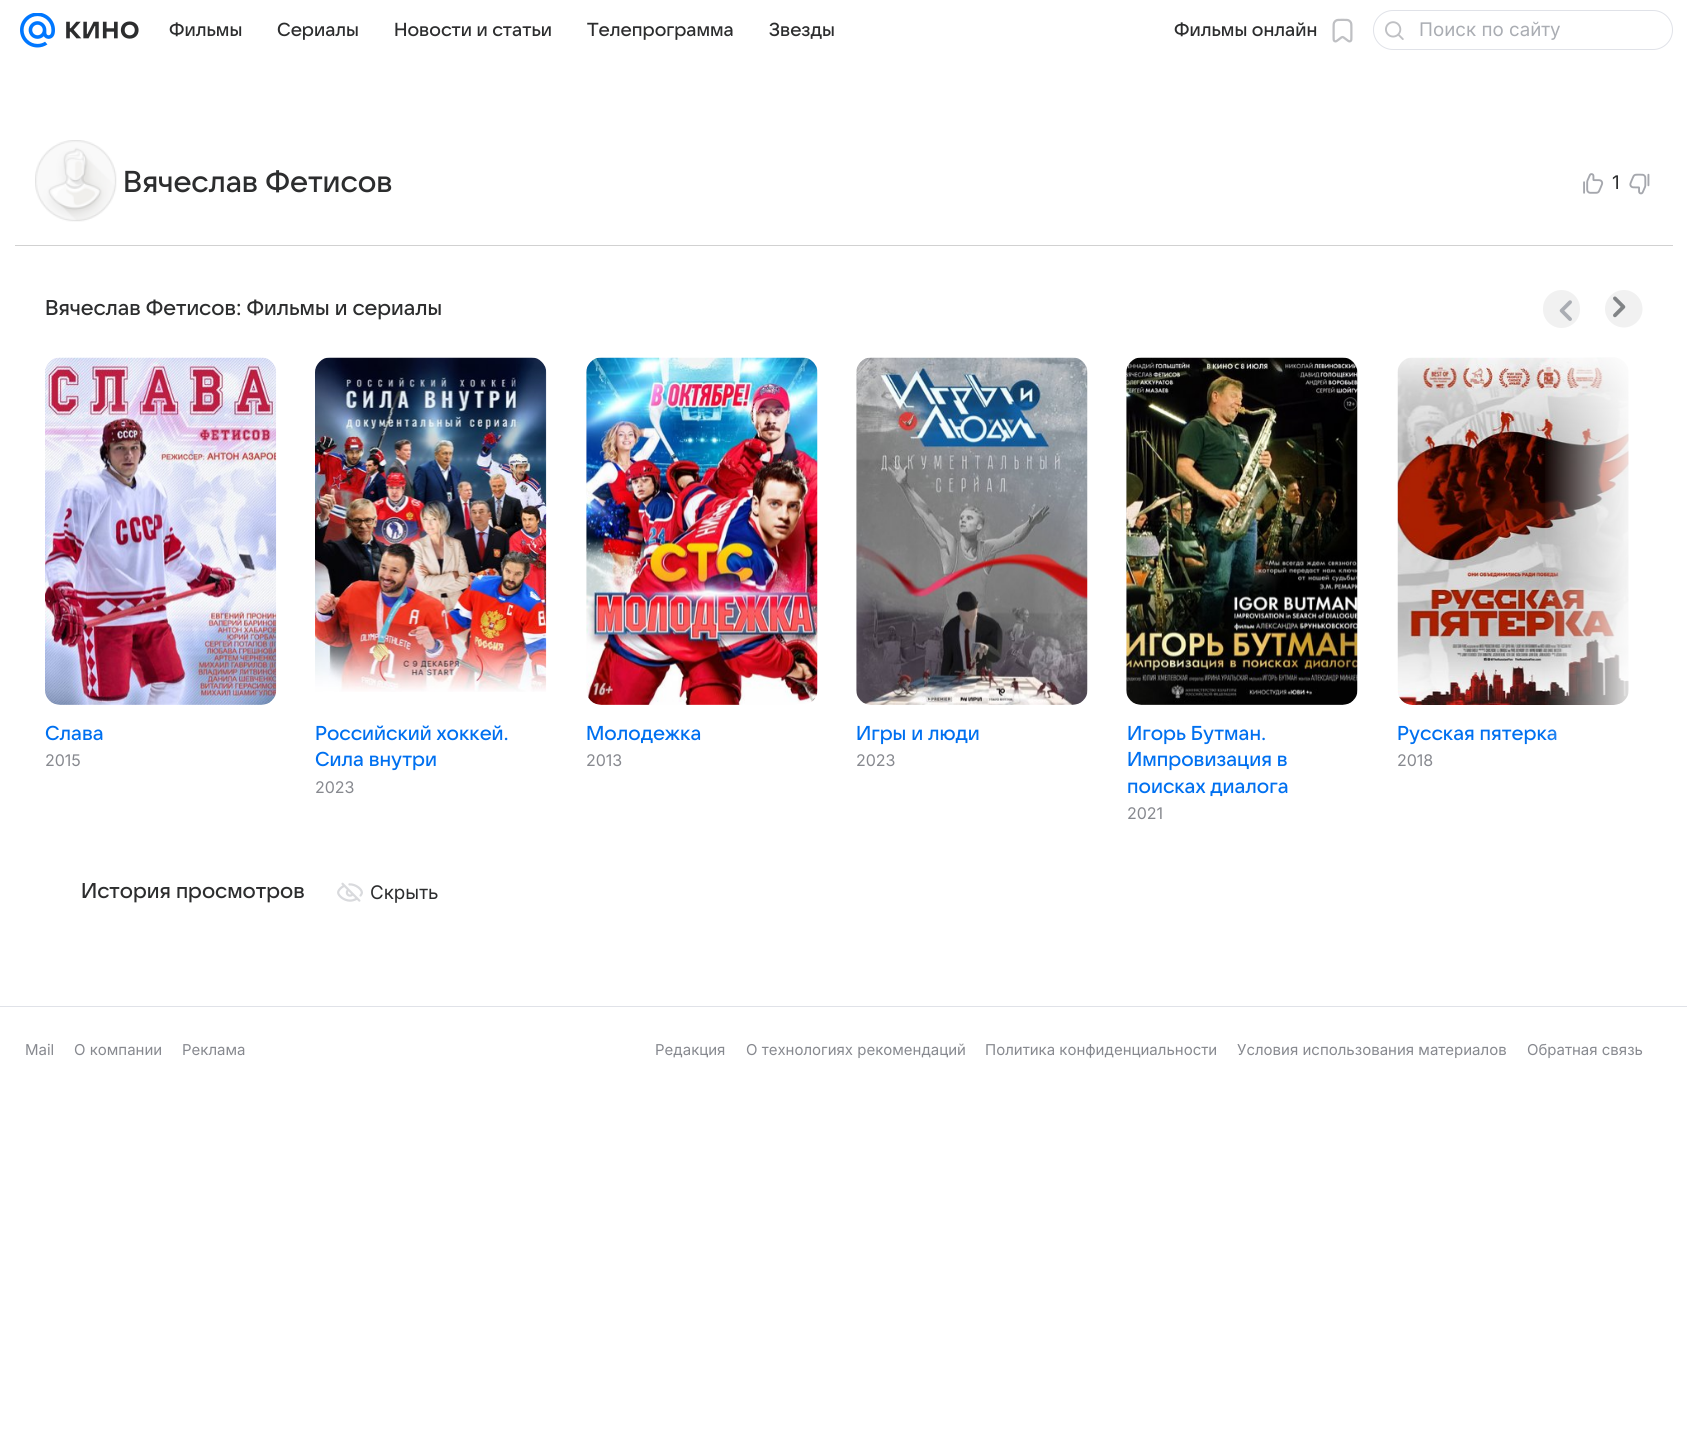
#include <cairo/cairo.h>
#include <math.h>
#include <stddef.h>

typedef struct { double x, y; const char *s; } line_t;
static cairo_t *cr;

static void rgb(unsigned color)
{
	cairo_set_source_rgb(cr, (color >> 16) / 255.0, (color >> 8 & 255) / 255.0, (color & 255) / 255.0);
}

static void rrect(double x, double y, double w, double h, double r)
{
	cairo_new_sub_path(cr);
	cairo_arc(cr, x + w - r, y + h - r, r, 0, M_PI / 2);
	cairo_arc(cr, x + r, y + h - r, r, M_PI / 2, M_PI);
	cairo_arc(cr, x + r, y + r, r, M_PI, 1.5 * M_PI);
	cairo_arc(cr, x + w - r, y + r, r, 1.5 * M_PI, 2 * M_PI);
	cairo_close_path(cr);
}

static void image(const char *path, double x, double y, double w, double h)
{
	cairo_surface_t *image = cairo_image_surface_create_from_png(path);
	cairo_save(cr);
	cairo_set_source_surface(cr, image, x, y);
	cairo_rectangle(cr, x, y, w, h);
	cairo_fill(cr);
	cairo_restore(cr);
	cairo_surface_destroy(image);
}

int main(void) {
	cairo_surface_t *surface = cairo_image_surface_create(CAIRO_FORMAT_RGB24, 1687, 1435);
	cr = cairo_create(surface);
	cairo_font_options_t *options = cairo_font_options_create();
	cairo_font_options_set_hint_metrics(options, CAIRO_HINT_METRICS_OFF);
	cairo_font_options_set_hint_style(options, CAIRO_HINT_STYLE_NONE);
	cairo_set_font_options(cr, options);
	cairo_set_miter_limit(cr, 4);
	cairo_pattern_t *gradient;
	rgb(0xffffff);
	cairo_paint(cr);
	image("img/1.png", 20, 13, 35, 35);
	image("img/2.png", 66, 21, 73, 18);
	image("img/3.png", 1332, 18, 21, 25);
	rrect(1373.5, 10.5, 299, 39, 19.5);
	rgb(0xe0e2e8);
	cairo_set_line_width(cr, 1);
	cairo_stroke(cr);
	image("img/4.png", 1385, 21, 19, 19);
	rgb(0xd1d1d1);
	cairo_rectangle(cr, 15, 245, 1658, 1);
	cairo_fill(cr);
	image("img/5.png", 35, 140, 82, 82);
	image("img/6.png", 1583, 173, 21, 21);
	image("img/7.png", 1629, 173, 21, 22);
	rgb(0xf1f1f1);
	rrect(1543, 290, 37, 38, 18.5);
	cairo_fill(cr);
	image("img/8.png", 1559, 300, 13, 21);
	cairo_new_path(cr);
	cairo_move_to(cr, 1624, 327.5);
	cairo_curve_to(cr, 1613.5, 327.5, 1605, 319, 1605, 309);
	cairo_curve_to(cr, 1605, 298.5, 1613.5, 290, 1624, 290);
	cairo_curve_to(cr, 1634, 290, 1642.5, 298.5, 1642.5, 309);
	cairo_curve_to(cr, 1642.5, 319, 1634, 327.5, 1624, 327.5);
	cairo_close_path(cr);
	cairo_fill(cr);
	image("img/9.png", 1613, 296, 13, 22);
	image("img/10.png", 45, 357, 232, 348);
	image("img/11.png", 315, 357, 232, 335);
	image("img/12.png", 586, 357, 232, 348);
	image("img/13.png", 856, 357, 232, 348);
	image("img/14.png", 1126, 357, 232, 348);
	image("img/15.png", 1397, 357, 232, 348);
	image("img/16.png", 337, 882, 26, 20);
	rgb(0xe0e2e8);
	cairo_rectangle(cr, 0, 1006, 1687, 1);
	cairo_fill(cr);
	cairo_select_font_face(cr, "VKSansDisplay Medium", CAIRO_FONT_SLANT_NORMAL, CAIRO_FONT_WEIGHT_NORMAL);
	cairo_set_font_size(cr, 18.75);
	rgb(0x2c2d2e);
	{
		static const line_t items[] = {
			{169, 36, "Фильмы"},
			{277, 36, "Сериалы"},
			{394, 36, "Новости и статьи"},
			{587, 36, "Телепрограмма"},
			{769, 36, "Звезды"},
			{1174, 36, "Фильмы онлайн"},
		};
		for (size_t i = 0; i < sizeof items / sizeof *items; i++) {
			cairo_move_to(cr, items[i].x, items[i].y);
			cairo_show_text(cr, items[i].s);
		}
	}
	cairo_select_font_face(cr, "Inter", CAIRO_FONT_SLANT_NORMAL, CAIRO_FONT_WEIGHT_NORMAL);
	rgb(0xaaadb3);
	cairo_move_to(cr, 1419, 36);
	cairo_show_text(cr, "Поиск по сайту");
	cairo_select_font_face(cr, "VKSansDisplay Medium", CAIRO_FONT_SLANT_NORMAL, CAIRO_FONT_WEIGHT_NORMAL);
	cairo_set_font_size(cr, 30);
	rgb(0x2c2d2e);
	cairo_move_to(cr, 123, 192);
	cairo_show_text(cr, "Вячеслав Фетисов");
	cairo_select_font_face(cr, "Inter", CAIRO_FONT_SLANT_NORMAL, CAIRO_FONT_WEIGHT_NORMAL);
	cairo_set_font_size(cr, 18.75);
	cairo_move_to(cr, 1612, 189);
	cairo_show_text(cr, "1");
	cairo_select_font_face(cr, "VKSansDisplay Medium", CAIRO_FONT_SLANT_NORMAL, CAIRO_FONT_WEIGHT_NORMAL);
	cairo_set_font_size(cr, 21.25);
	cairo_move_to(cr, 45, 315);
	cairo_show_text(cr, "Вячеслав Фетисов: Фильмы и сериалы");
	cairo_set_font_size(cr, 20);
	rgb(0x0070f0);
	cairo_move_to(cr, 45, 740);
	cairo_show_text(cr, "Слава");
	cairo_select_font_face(cr, "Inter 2", CAIRO_FONT_SLANT_NORMAL, CAIRO_FONT_WEIGHT_NORMAL);
	cairo_set_font_size(cr, 16);
	rgb(0x87898f);
	cairo_move_to(cr, 45, 766);
	cairo_show_text(cr, "2015");
	cairo_select_font_face(cr, "VKSansDisplay Medium", CAIRO_FONT_SLANT_NORMAL, CAIRO_FONT_WEIGHT_NORMAL);
	cairo_set_font_size(cr, 20);
	rgb(0x0070f0);
	cairo_move_to(cr, 315, 740);
	cairo_show_text(cr, "Российский хоккей.");
	cairo_move_to(cr, 315, 766);
	cairo_show_text(cr, "Сила внутри");
	cairo_select_font_face(cr, "Inter 2", CAIRO_FONT_SLANT_NORMAL, CAIRO_FONT_WEIGHT_NORMAL);
	cairo_set_font_size(cr, 16);
	rgb(0x87898f);
	cairo_move_to(cr, 315, 793);
	cairo_show_text(cr, "2023");
	cairo_select_font_face(cr, "VKSansDisplay Medium", CAIRO_FONT_SLANT_NORMAL, CAIRO_FONT_WEIGHT_NORMAL);
	cairo_set_font_size(cr, 20);
	rgb(0x0070f0);
	cairo_move_to(cr, 586, 740);
	cairo_show_text(cr, "Молодежка");
	cairo_select_font_face(cr, "Inter 2", CAIRO_FONT_SLANT_NORMAL, CAIRO_FONT_WEIGHT_NORMAL);
	cairo_set_font_size(cr, 16);
	rgb(0x87898f);
	cairo_move_to(cr, 586, 766);
	cairo_show_text(cr, "2013");
	cairo_select_font_face(cr, "VKSansDisplay Medium", CAIRO_FONT_SLANT_NORMAL, CAIRO_FONT_WEIGHT_NORMAL);
	cairo_set_font_size(cr, 20);
	rgb(0x0070f0);
	cairo_move_to(cr, 856, 740);
	cairo_show_text(cr, "Игры и люди");
	cairo_select_font_face(cr, "Inter 2", CAIRO_FONT_SLANT_NORMAL, CAIRO_FONT_WEIGHT_NORMAL);
	cairo_set_font_size(cr, 16);
	rgb(0x87898f);
	cairo_move_to(cr, 856, 766);
	cairo_show_text(cr, "2023");
	cairo_select_font_face(cr, "VKSansDisplay Medium", CAIRO_FONT_SLANT_NORMAL, CAIRO_FONT_WEIGHT_NORMAL);
	cairo_set_font_size(cr, 20);
	rgb(0x0070f0);
	{
		static const line_t items[] = {
			{1127, 740, "Игорь Бутман."},
			{1127, 766, "Импровизация в"},
			{1127, 793, "поисках диалога"},
		};
		for (size_t i = 0; i < sizeof items / sizeof *items; i++) {
			cairo_move_to(cr, items[i].x, items[i].y);
			cairo_show_text(cr, items[i].s);
		}
	}
	cairo_select_font_face(cr, "Inter 2", CAIRO_FONT_SLANT_NORMAL, CAIRO_FONT_WEIGHT_NORMAL);
	cairo_set_font_size(cr, 16);
	rgb(0x87898f);
	cairo_move_to(cr, 1127, 819);
	cairo_show_text(cr, "2021");
	cairo_select_font_face(cr, "VKSansDisplay Medium", CAIRO_FONT_SLANT_NORMAL, CAIRO_FONT_WEIGHT_NORMAL);
	cairo_set_font_size(cr, 20);
	rgb(0x0070f0);
	cairo_move_to(cr, 1397, 740);
	cairo_show_text(cr, "Русская пятерка");
	gradient = cairo_pattern_create_linear(1543, 591, 1643, 591);
	cairo_pattern_add_color_stop_rgba(gradient, 0, 1, 1, 1, 0);
	cairo_pattern_add_color_stop_rgba(gradient, 1, 1, 1, 1, 1);
	cairo_set_source(cr, gradient);
	cairo_pattern_destroy(gradient);
	cairo_rectangle(cr, 1545, 358, 84, 383);
	cairo_fill(cr);
	cairo_select_font_face(cr, "Inter 2", CAIRO_FONT_SLANT_NORMAL, CAIRO_FONT_WEIGHT_NORMAL);
	cairo_set_font_size(cr, 16);
	rgb(0x87898f);
	cairo_move_to(cr, 1397, 766);
	cairo_show_text(cr, "2018");
	cairo_select_font_face(cr, "VKSansDisplay Medium", CAIRO_FONT_SLANT_NORMAL, CAIRO_FONT_WEIGHT_NORMAL);
	cairo_set_font_size(cr, 21.25);
	rgb(0x2c2d2e);
	cairo_move_to(cr, 81, 898);
	cairo_show_text(cr, "История просмотров");
	cairo_select_font_face(cr, "Inter", CAIRO_FONT_SLANT_NORMAL, CAIRO_FONT_WEIGHT_NORMAL);
	cairo_set_font_size(cr, 18.75);
	cairo_move_to(cr, 370, 899);
	cairo_show_text(cr, "Скрыть");
	cairo_set_font_size(cr, 15);
	rgb(0x87898f);
	{
		static const line_t items[] = {
			{25, 1055, "Mail"},
			{74, 1055, "О компании"},
			{182, 1055, "Реклама"},
			{655, 1055, "Редакция"},
			{746, 1055, "О технологиях рекомендаций"},
			{985, 1055, "Политика конфиденциальности"},
			{1237, 1055, "Условия использования материалов"},
			{1527, 1055, "Обратная связь"},
		};
		for (size_t i = 0; i < sizeof items / sizeof *items; i++) {
			cairo_move_to(cr, items[i].x, items[i].y);
			cairo_show_text(cr, items[i].s);
		}
	}
	cairo_surface_write_to_png(surface, "page.png");
	cairo_font_options_destroy(options);
	cairo_destroy(cr);
	cairo_surface_destroy(surface);
	return 0;
}
